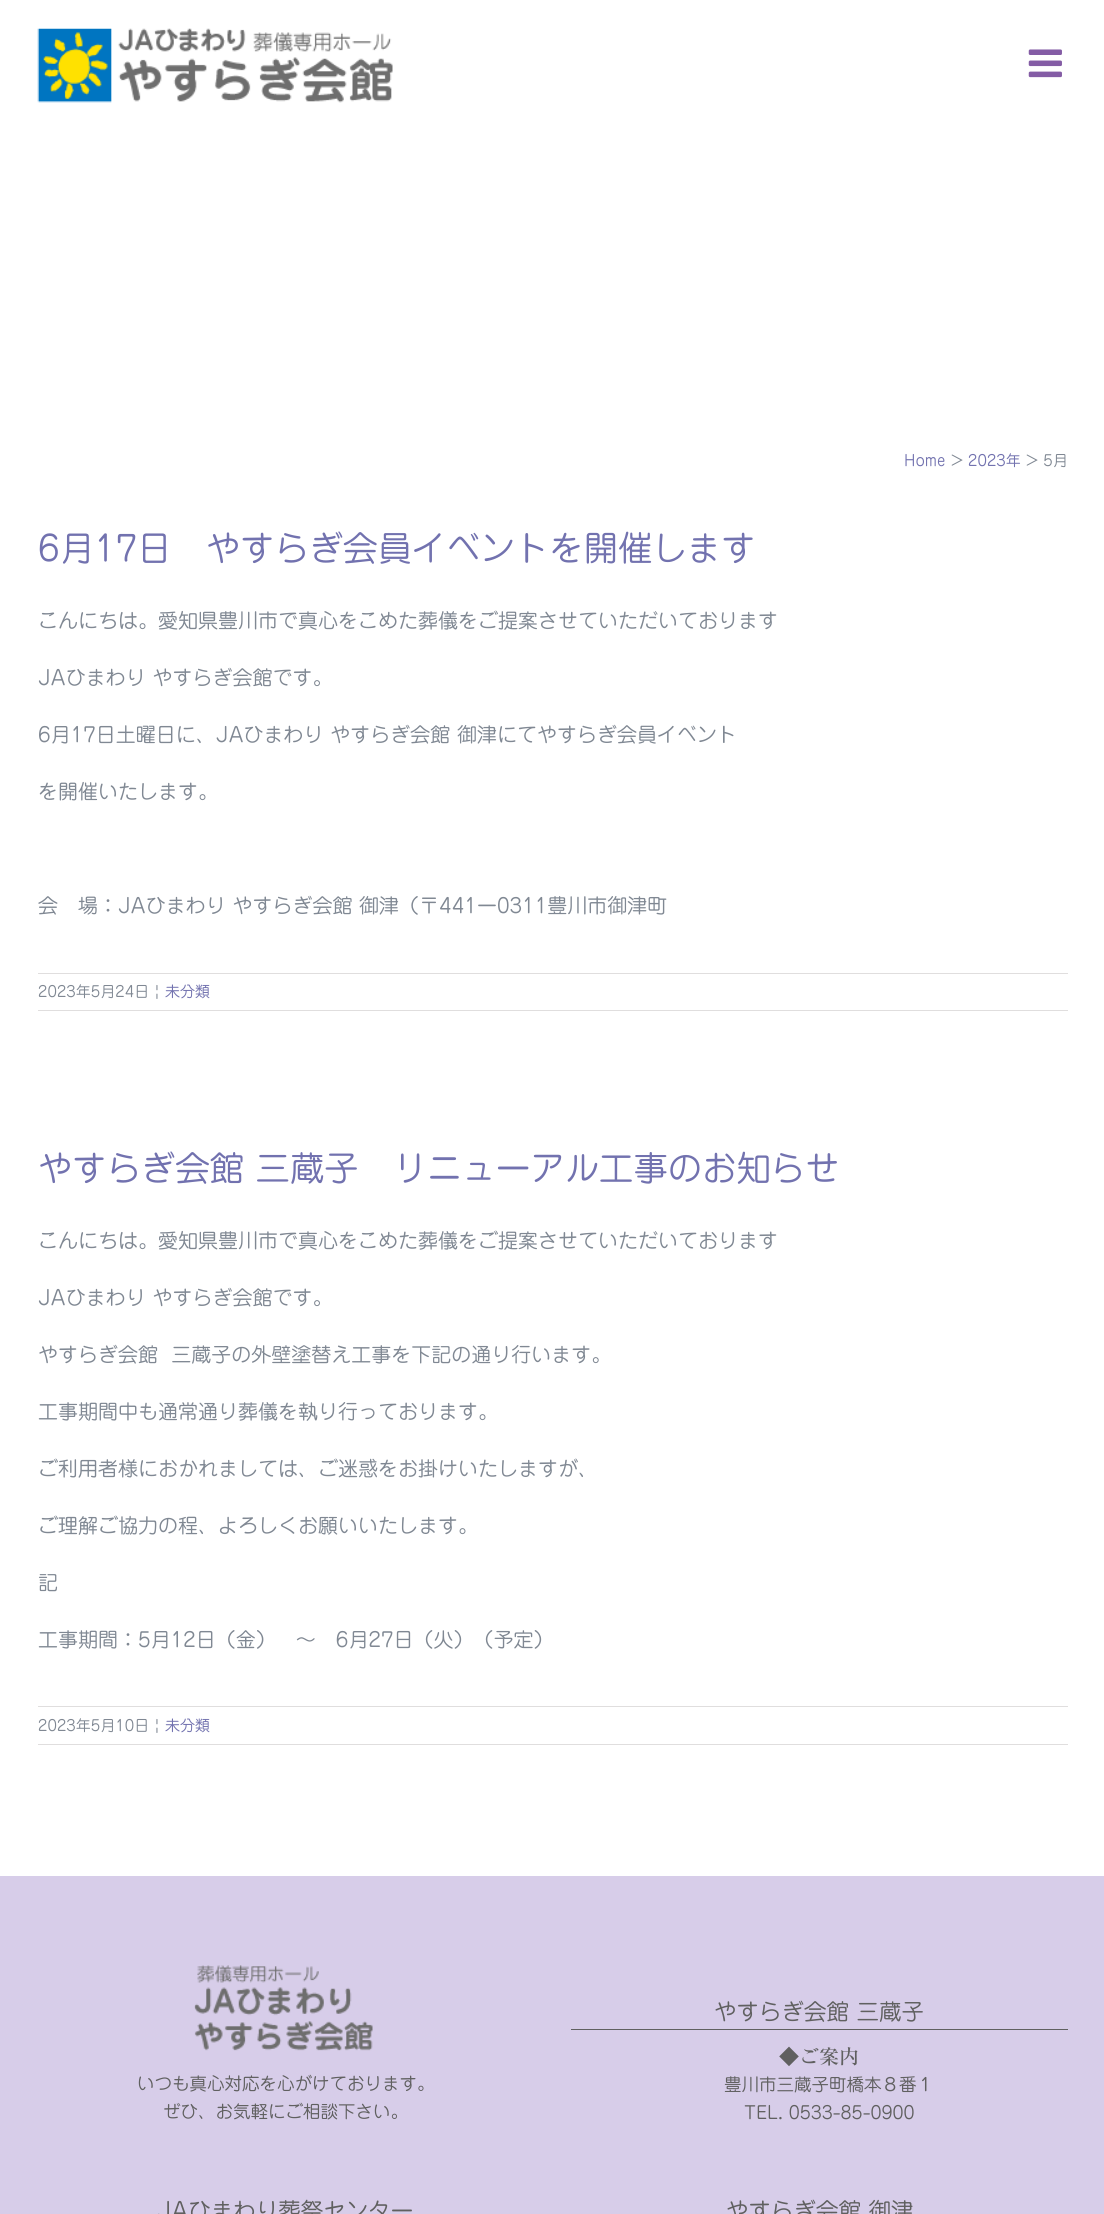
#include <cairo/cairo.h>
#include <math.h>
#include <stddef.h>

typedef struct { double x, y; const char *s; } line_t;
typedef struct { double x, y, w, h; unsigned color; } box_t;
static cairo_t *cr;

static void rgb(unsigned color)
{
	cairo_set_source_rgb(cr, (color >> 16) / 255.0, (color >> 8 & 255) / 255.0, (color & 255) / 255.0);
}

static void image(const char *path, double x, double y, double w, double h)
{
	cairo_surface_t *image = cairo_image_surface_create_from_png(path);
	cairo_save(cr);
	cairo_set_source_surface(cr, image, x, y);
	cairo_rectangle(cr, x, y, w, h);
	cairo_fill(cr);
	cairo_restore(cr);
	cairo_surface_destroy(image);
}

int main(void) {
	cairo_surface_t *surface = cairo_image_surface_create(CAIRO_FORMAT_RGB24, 1104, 2214);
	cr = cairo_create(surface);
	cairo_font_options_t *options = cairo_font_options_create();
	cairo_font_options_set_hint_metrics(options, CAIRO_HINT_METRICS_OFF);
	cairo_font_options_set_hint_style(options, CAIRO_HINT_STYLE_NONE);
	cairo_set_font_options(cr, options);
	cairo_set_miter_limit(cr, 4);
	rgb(0xffffff);
	cairo_paint(cr);
	image("img/1.png", 37, 28, 356, 75);
	image("img/2.png", 1028, 49, 34, 29);
	{
		static const box_t items[] = {
			{38, 973, 1030, 1, 0xe0dede},
			{38, 1010, 1030, 1, 0xe0dede},
			{38, 1706, 1030, 1, 0xe0dede},
			{38, 1744, 1030, 1, 0xe0dede},
			{0, 1876, 1104, 338, 0xd7cde9},
		};
		for (size_t i = 0; i < sizeof items / sizeof *items; i++) {
			rgb(items[i].color);
			cairo_rectangle(cr, items[i].x, items[i].y, items[i].w, items[i].h);
			cairo_fill(cr);
		}
	}
	image("img/3.png", 194, 1965, 179, 86);
	rgb(0x606060);
	cairo_rectangle(cr, 571, 2029, 497, 1);
	cairo_fill(cr);
	cairo_select_font_face(cr, "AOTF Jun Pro", CAIRO_FONT_SLANT_NORMAL, CAIRO_FONT_WEIGHT_NORMAL);
	cairo_set_font_size(cr, 15);
	rgb(0x7272af);
	cairo_move_to(cr, 904, 466);
	cairo_show_text(cr, "Home");
	rgb(0x808893);
	cairo_move_to(cr, 951, 466);
	cairo_show_text(cr, ">");
	rgb(0x7272af);
	cairo_move_to(cr, 968, 466);
	cairo_show_text(cr, "2023年");
	rgb(0x808893);
	cairo_move_to(cr, 1026, 466);
	cairo_show_text(cr, "> 5月");
	cairo_set_font_size(cr, 34.35);
	rgb(0x7272af);
	cairo_move_to(cr, 38, 561);
	cairo_show_text(cr, "6月17日　やすらぎ会員イベントを開催します");
	cairo_set_font_size(cr, 20);
	rgb(0x808893);
	{
		static const line_t items[] = {
			{38, 628, "こんにちは。愛知県豊川市で真心をこめた葬儀をご提案させていただいております"},
			{38, 685, "JAひまわり やすらぎ会館です。"},
			{38, 742, "6月17日土曜日に、JAひまわり やすらぎ会館 御津にてやすらぎ会員イベント"},
			{38, 799, "を開催いたします。"},
			{38, 913, "会　場：JAひまわり やすらぎ会館 御津（〒441ー0311豊川市御津町"},
		};
		for (size_t i = 0; i < sizeof items / sizeof *items; i++) {
			cairo_move_to(cr, items[i].x, items[i].y);
			cairo_show_text(cr, items[i].s);
		}
	}
	cairo_set_font_size(cr, 15);
	cairo_move_to(cr, 38, 997);
	cairo_show_text(cr, "2023年5月24日");
	cairo_move_to(cr, 155, 997);
	cairo_show_text(cr, "|");
	rgb(0x7272af);
	cairo_move_to(cr, 165, 997);
	cairo_show_text(cr, "未分類");
	cairo_set_font_size(cr, 34.35);
	cairo_move_to(cr, 38, 1181);
	cairo_show_text(cr, "やすらぎ会館 三蔵子　リニューアル工事のお知らせ");
	cairo_set_font_size(cr, 20);
	rgb(0x808893);
	{
		static const line_t items[] = {
			{38, 1248, "こんにちは。愛知県豊川市で真心をこめた葬儀をご提案させていただいております"},
			{38, 1305, "JAひまわり やすらぎ会館です。"},
			{38, 1362, "やすらぎ会館  三蔵子の外壁塗替え工事を下記の通り行います。"},
			{38, 1419, "工事期間中も通常通り葬儀を執り行っております。"},
			{38, 1476, "ご利用者様におかれましては、ご迷惑をお掛けいたしますが、"},
			{38, 1533, "ご理解ご協力の程、よろしくお願いいたします。"},
			{38, 1590, "記"},
			{38, 1647, "工事期間：5月12日（金）　〜　6月27日（火）（予定）"},
		};
		for (size_t i = 0; i < sizeof items / sizeof *items; i++) {
			cairo_move_to(cr, items[i].x, items[i].y);
			cairo_show_text(cr, items[i].s);
		}
	}
	cairo_set_font_size(cr, 15);
	cairo_move_to(cr, 38, 1731);
	cairo_show_text(cr, "2023年5月10日");
	cairo_move_to(cr, 155, 1731);
	cairo_show_text(cr, "|");
	rgb(0x7272af);
	cairo_move_to(cr, 165, 1731);
	cairo_show_text(cr, "未分類");
	cairo_set_font_size(cr, 17.5);
	rgb(0x606060);
	cairo_move_to(cr, 137, 2090);
	cairo_show_text(cr, "いつも真心対応を心がけております。");
	cairo_move_to(cr, 163, 2118);
	cairo_show_text(cr, "ぜひ、お気軽にご相談下さい。");
	cairo_set_font_size(cr, 22.5);
	cairo_move_to(cr, 157, 2219);
	cairo_show_text(cr, "JAひまわり葬祭センター");
	cairo_move_to(cr, 714, 2020);
	cairo_show_text(cr, "やすらぎ会館 三蔵子");
	cairo_select_font_face(cr, "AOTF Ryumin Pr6 Medium", CAIRO_FONT_SLANT_NORMAL, CAIRO_FONT_WEIGHT_NORMAL);
	cairo_set_font_size(cr, 20);
	cairo_move_to(cr, 779, 2064);
	cairo_show_text(cr, "◆ご案内");
	cairo_select_font_face(cr, "AOTF Jun Pro", CAIRO_FONT_SLANT_NORMAL, CAIRO_FONT_WEIGHT_NORMAL);
	cairo_set_font_size(cr, 17.5);
	cairo_move_to(cr, 724, 2091);
	cairo_show_text(cr, "豊川市三蔵子町橋本８番１");
	cairo_move_to(cr, 744, 2119);
	cairo_show_text(cr, "TEL. 0533-85-0900");
	cairo_set_font_size(cr, 22.5);
	cairo_move_to(cr, 726, 2219);
	cairo_show_text(cr, "やすらぎ会館 御津");
	cairo_surface_write_to_png(surface, "page.png");
	cairo_font_options_destroy(options);
	cairo_destroy(cr);
	cairo_surface_destroy(surface);
	return 0;
}
